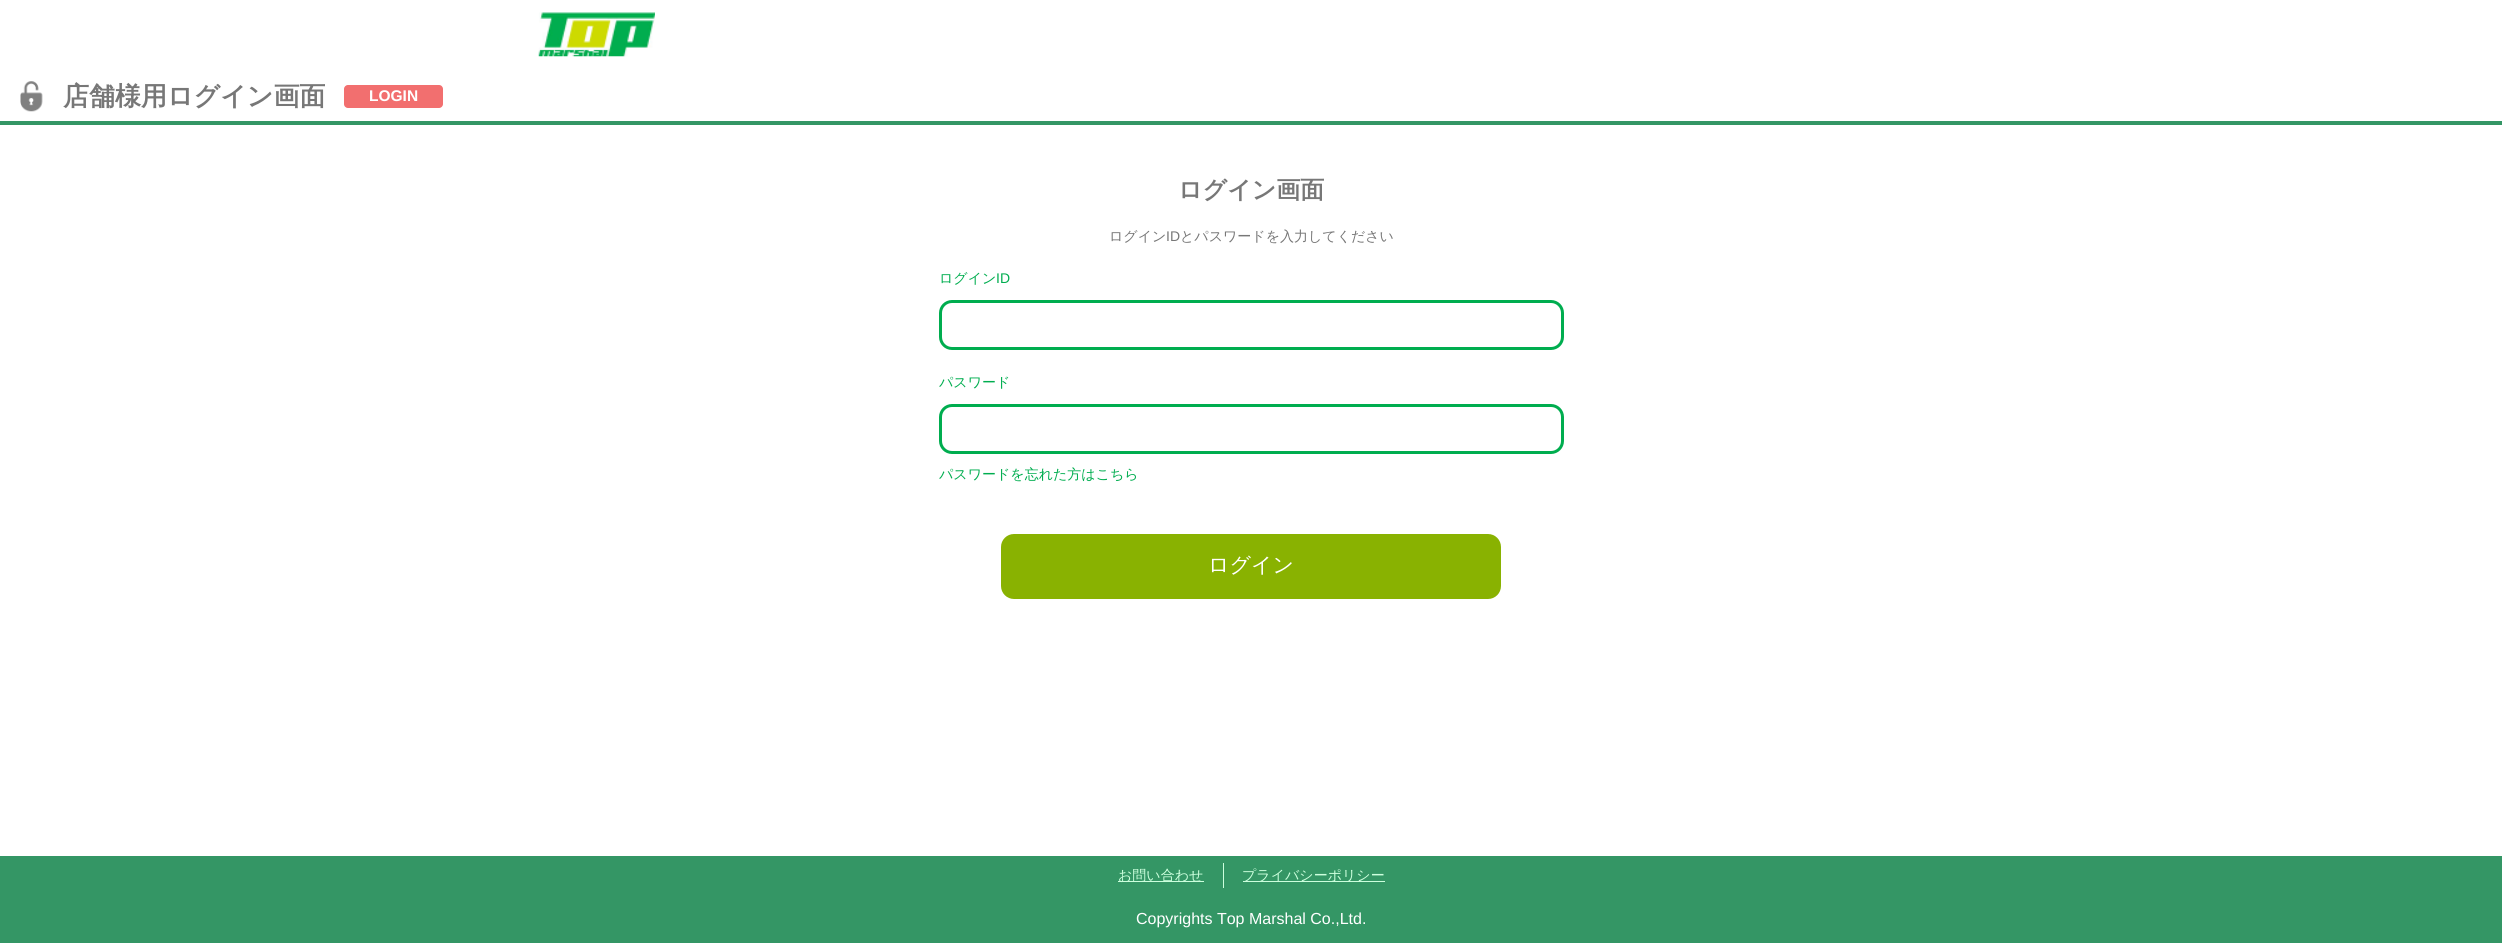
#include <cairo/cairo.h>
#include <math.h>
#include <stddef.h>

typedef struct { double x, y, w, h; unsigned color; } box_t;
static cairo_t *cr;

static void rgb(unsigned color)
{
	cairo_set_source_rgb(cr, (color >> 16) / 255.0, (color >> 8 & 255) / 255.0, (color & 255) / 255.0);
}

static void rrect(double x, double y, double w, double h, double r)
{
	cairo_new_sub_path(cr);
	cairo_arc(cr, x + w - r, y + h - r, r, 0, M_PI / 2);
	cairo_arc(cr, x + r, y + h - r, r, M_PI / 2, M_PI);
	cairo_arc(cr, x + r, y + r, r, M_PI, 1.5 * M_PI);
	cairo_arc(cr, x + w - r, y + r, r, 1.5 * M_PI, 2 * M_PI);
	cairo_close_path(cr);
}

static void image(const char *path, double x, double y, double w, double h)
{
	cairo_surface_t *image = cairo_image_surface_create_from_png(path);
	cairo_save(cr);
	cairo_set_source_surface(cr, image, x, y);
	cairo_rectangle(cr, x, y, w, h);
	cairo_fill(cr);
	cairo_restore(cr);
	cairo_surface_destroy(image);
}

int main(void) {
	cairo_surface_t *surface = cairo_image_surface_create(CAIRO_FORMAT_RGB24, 2502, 943);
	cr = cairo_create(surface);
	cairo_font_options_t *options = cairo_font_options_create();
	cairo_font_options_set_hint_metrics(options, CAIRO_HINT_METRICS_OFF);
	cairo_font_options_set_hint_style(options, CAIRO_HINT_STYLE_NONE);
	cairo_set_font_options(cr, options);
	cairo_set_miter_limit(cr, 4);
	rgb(0xffffff);
	cairo_paint(cr);
	image("img/1.png", 538, 12, 117, 45);
	rgb(0x349665);
	cairo_rectangle(cr, 0, 121, 2502, 4);
	cairo_fill(cr);
	image("img/2.png", 20, 81, 23, 31);
	rgb(0xf26f6f);
	rrect(344, 85, 99, 23, 4);
	cairo_fill(cr);
	rrect(940.5, 301.5, 622, 47, 11.5);
	rgb(0x00ad4f);
	cairo_set_line_width(cr, 3);
	cairo_stroke(cr);
	rrect(940.5, 405.5, 622, 47, 11.5);
	cairo_stroke(cr);
	rgb(0x89b201);
	rrect(1001, 534, 500, 65, 13);
	cairo_fill(cr);
	{
		static const box_t items[] = {
			{0, 856, 2502, 87, 0x349665},
			{1118, 881, 86, 1, 0xccffdd},
			{1223, 863, 1, 25, 0xccffdd},
			{1243, 881, 142, 1, 0xccffdd},
		};
		for (size_t i = 0; i < sizeof items / sizeof *items; i++) {
			rgb(items[i].color);
			cairo_rectangle(cr, items[i].x, items[i].y, items[i].w, items[i].h);
			cairo_fill(cr);
		}
	}
	cairo_select_font_face(cr, "WenQuanYi Zen Hei", CAIRO_FONT_SLANT_NORMAL, CAIRO_FONT_WEIGHT_BOLD);
	cairo_set_font_size(cr, 26);
	rgb(0x777777);
	cairo_move_to(cr, 63, 105);
	cairo_show_text(cr, "店舗様用ログイン画面");
	cairo_select_font_face(cr, "Liberation Sans", CAIRO_FONT_SLANT_NORMAL, CAIRO_FONT_WEIGHT_BOLD);
	cairo_set_font_size(cr, 15.5);
	rgb(0xffffff);
	cairo_move_to(cr, 369, 101);
	cairo_show_text(cr, "LOGIN");
	cairo_select_font_face(cr, "WenQuanYi Zen Hei", CAIRO_FONT_SLANT_NORMAL, CAIRO_FONT_WEIGHT_BOLD);
	cairo_set_font_size(cr, 24);
	rgb(0x777777);
	cairo_move_to(cr, 1178, 198);
	cairo_show_text(cr, "ログイン画面");
	cairo_select_font_face(cr, "WenQuanYi Zen Hei Medium", CAIRO_FONT_SLANT_NORMAL, CAIRO_FONT_WEIGHT_NORMAL);
	cairo_set_font_size(cr, 14);
	cairo_move_to(cr, 1109, 241);
	cairo_show_text(cr, "ログイン");
	cairo_select_font_face(cr, "Liberation Sans", CAIRO_FONT_SLANT_NORMAL, CAIRO_FONT_WEIGHT_NORMAL);
	cairo_move_to(cr, 1166, 241);
	cairo_show_text(cr, "ID");
	cairo_select_font_face(cr, "WenQuanYi Zen Hei Medium", CAIRO_FONT_SLANT_NORMAL, CAIRO_FONT_WEIGHT_NORMAL);
	cairo_move_to(cr, 1180, 241);
	cairo_show_text(cr, "とパスワードを入力してください");
	rgb(0x00ad4f);
	cairo_move_to(cr, 939, 283);
	cairo_show_text(cr, "ログイン");
	cairo_select_font_face(cr, "Liberation Sans", CAIRO_FONT_SLANT_NORMAL, CAIRO_FONT_WEIGHT_NORMAL);
	cairo_move_to(cr, 996, 283);
	cairo_show_text(cr, "ID");
	cairo_select_font_face(cr, "WenQuanYi Zen Hei Medium", CAIRO_FONT_SLANT_NORMAL, CAIRO_FONT_WEIGHT_NORMAL);
	cairo_move_to(cr, 939, 387);
	cairo_show_text(cr, "パスワード");
	cairo_move_to(cr, 939, 479);
	cairo_show_text(cr, "パスワードを忘れた方はこちら");
	cairo_set_font_size(cr, 21);
	rgb(0xffffff);
	cairo_move_to(cr, 1208, 572);
	cairo_show_text(cr, "ログイン");
	cairo_set_font_size(cr, 14);
	rgb(0xccffdd);
	cairo_move_to(cr, 1118, 880);
	cairo_show_text(cr, "お問い合わせ");
	cairo_move_to(cr, 1242, 880);
	cairo_show_text(cr, "プライバシーポリシー");
	cairo_select_font_face(cr, "Liberation Sans", CAIRO_FONT_SLANT_NORMAL, CAIRO_FONT_WEIGHT_NORMAL);
	cairo_set_font_size(cr, 16);
	rgb(0xffffff);
	cairo_move_to(cr, 1136, 924);
	cairo_show_text(cr, "Copyrights Top Marshal Co.,Ltd.");
	cairo_surface_write_to_png(surface, "page.png");
	cairo_font_options_destroy(options);
	cairo_destroy(cr);
	cairo_surface_destroy(surface);
	return 0;
}
